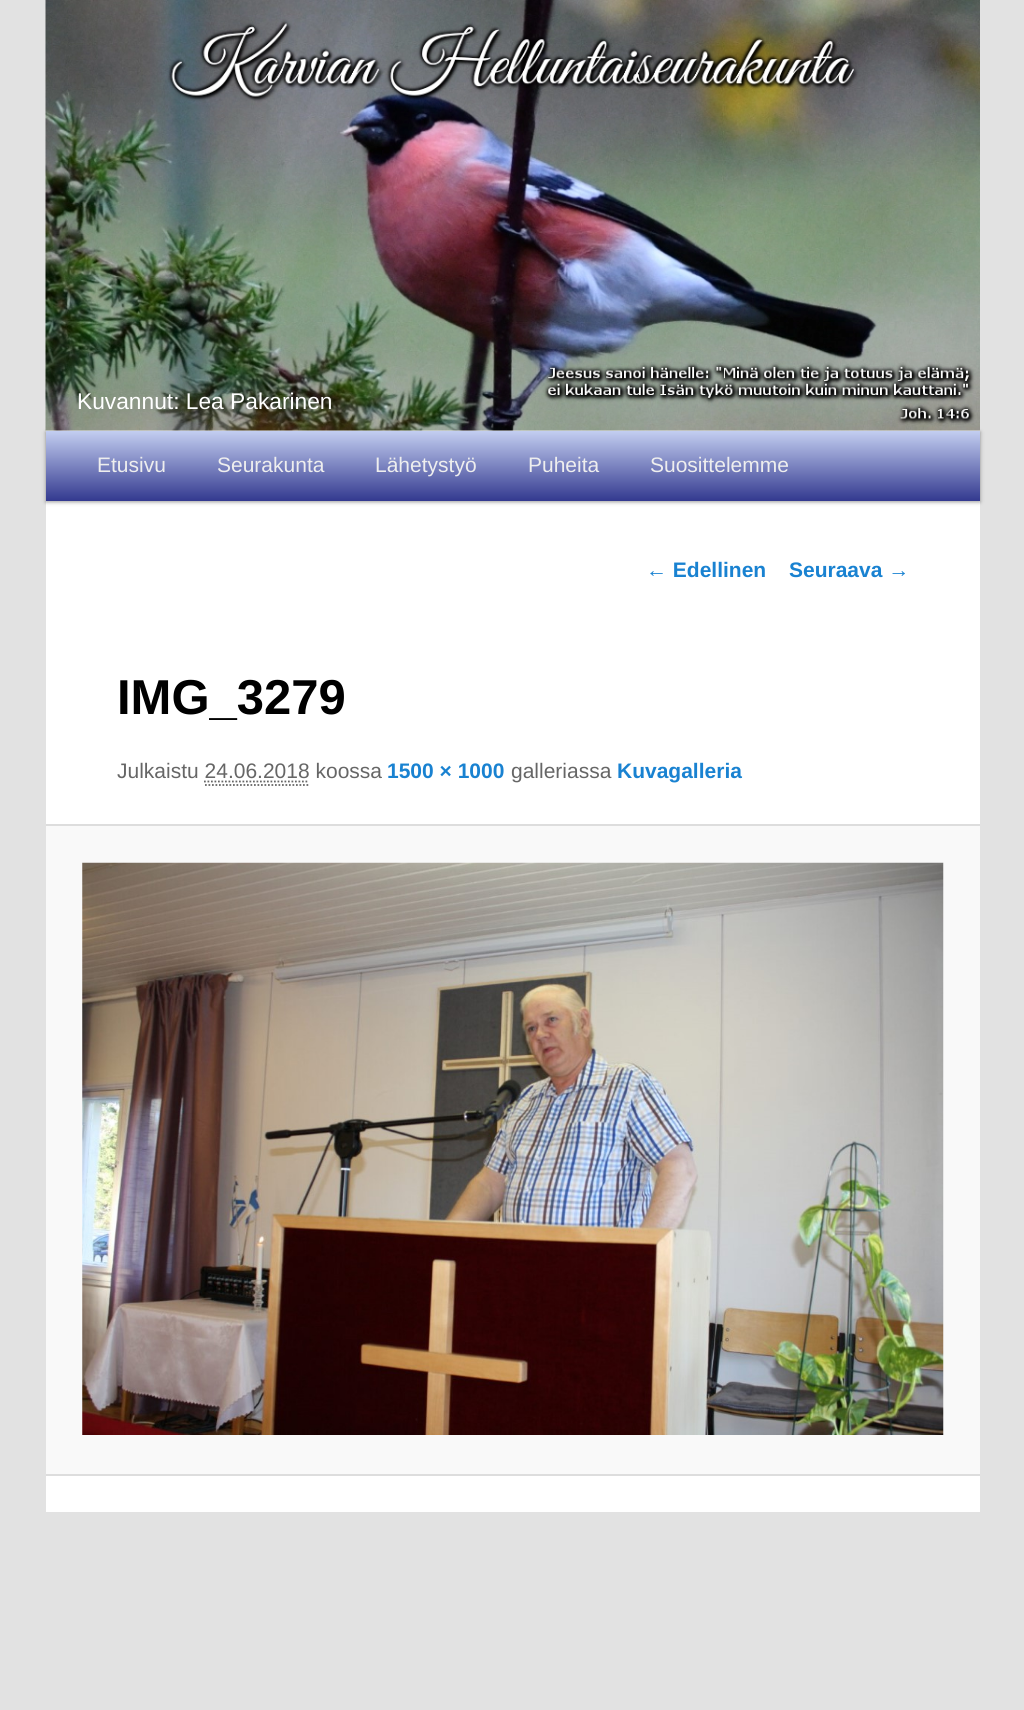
#include <cairo/cairo.h>
#include <math.h>
#include <stddef.h>

typedef struct { double x, y; const char *s; } line_t;
typedef struct { double x, y, w, h; unsigned color; } box_t;
static cairo_t *cr;

static void rgb(unsigned color)
{
	cairo_set_source_rgb(cr, (color >> 16) / 255.0, (color >> 8 & 255) / 255.0, (color & 255) / 255.0);
}

static void rrect(double x, double y, double w, double h, double r)
{
	cairo_new_sub_path(cr);
	cairo_arc(cr, x + w - r, y + h - r, r, 0, M_PI / 2);
	cairo_arc(cr, x + r, y + h - r, r, M_PI / 2, M_PI);
	cairo_arc(cr, x + r, y + r, r, M_PI, 1.5 * M_PI);
	cairo_arc(cr, x + w - r, y + r, r, 1.5 * M_PI, 2 * M_PI);
	cairo_close_path(cr);
}

static void soft_shadow(double x, double y, double w, double h, double r, double blur, double alpha)
{
	cairo_push_group_with_content(cr, CAIRO_CONTENT_ALPHA);
	cairo_set_operator(cr, CAIRO_OPERATOR_SOURCE);
	for (int i = 15; i >= -15 && fmin(w, h) + blur * i / 3 > 0; i -= 2) {
		double e = blur * i / 6;
		cairo_set_source_rgba(cr, 0, 0, 0, alpha * erfc((i - 1) / 8.5) / 2);
		rrect(x - e, y - e, w + 2 * e, h + 2 * e, fmax(0, fmin(r + e + blur * .6, fmin(w, h) / 2 + e)));
		cairo_fill(cr);
	}
	cairo_pattern_t *soft = cairo_pop_group(cr);
	cairo_mask(cr, soft);
	cairo_pattern_destroy(soft);
}

static void image(const char *path, double x, double y, double w, double h)
{
	cairo_surface_t *image = cairo_image_surface_create_from_png(path);
	cairo_save(cr);
	cairo_set_source_surface(cr, image, x, y);
	cairo_rectangle(cr, x, y, w, h);
	cairo_fill(cr);
	cairo_restore(cr);
	cairo_surface_destroy(image);
}

int main(void) {
	cairo_surface_t *surface = cairo_image_surface_create(CAIRO_FORMAT_RGB24, 1024, 1710);
	cr = cairo_create(surface);
	cairo_font_options_t *options = cairo_font_options_create();
	cairo_font_options_set_hint_metrics(options, CAIRO_HINT_METRICS_OFF);
	cairo_font_options_set_hint_style(options, CAIRO_HINT_STYLE_NONE);
	cairo_set_font_options(cr, options);
	cairo_set_miter_limit(cr, 4);
	cairo_pattern_t *gradient;
	rgb(0xe2e2e2);
	cairo_paint(cr);
	rgb(0xffffff);
	cairo_rectangle(cr, 46, 430, 934, 1082);
	cairo_fill(cr);
	rgb(0x000000);
	soft_shadow(46, 432, 934, 70, 0, 2, 0.4);
	image("img/1.png", 45, 0, 935, 431);
	gradient = cairo_pattern_create_linear(513, 430, 513, 501);
	cairo_pattern_add_color_stop_rgba(gradient, 0, 0.773, 0.816, 0.949, 1);
	cairo_pattern_add_color_stop_rgba(gradient, 1, 0.2, 0.224, 0.561, 1);
	cairo_set_source(cr, gradient);
	cairo_pattern_destroy(gradient);
	cairo_rectangle(cr, 46, 431, 934, 70);
	cairo_fill(cr);
	cairo_new_path(cr);
	cairo_move_to(cr, 204, 781.5);
	cairo_line_to(cr, 309, 781.5);
	rgb(0x666666);
	cairo_set_line_width(cr, 1.8);
	cairo_set_dash(cr, (double[]){1.75, 1.75}, 2, 0);
	cairo_stroke(cr);
	cairo_new_path(cr);
	cairo_move_to(cr, 205, 785);
	cairo_line_to(cr, 310, 785);
	cairo_stroke(cr);
	{
		static const box_t items[] = {
			{46, 826, 934, 648, 0xf9f9f9},
			{46, 824, 934, 2, 0xdddddd},
			{46, 1474, 934, 2, 0xdddddd},
		};
		for (size_t i = 0; i < sizeof items / sizeof *items; i++) {
			rgb(items[i].color);
			cairo_rectangle(cr, items[i].x, items[i].y, items[i].w, items[i].h);
			cairo_fill(cr);
		}
	}
	image("img/2.png", 82, 862, 862, 573);
	cairo_select_font_face(cr, "Liberation Sans", CAIRO_FONT_SLANT_NORMAL, CAIRO_FONT_WEIGHT_NORMAL);
	cairo_set_font_size(cr, 22.75);
	rgb(0xffffff);
	cairo_move_to(cr, 77, 409);
	cairo_show_text(cr, "Kuvannut: Lea Pakarinen");
	cairo_set_font_size(cr, 21);
	rgb(0xeeeeee);
	{
		static const line_t items[] = {
			{97, 472, "Etusivu"},
			{217, 472, "Seurakunta"},
			{375, 472, "Lähetystyö"},
			{528, 472, "Puheita"},
			{650, 472, "Suosittelemme"},
		};
		for (size_t i = 0; i < sizeof items / sizeof *items; i++) {
			cairo_move_to(cr, items[i].x, items[i].y);
			cairo_show_text(cr, items[i].s);
		}
	}
	cairo_select_font_face(cr, "Liberation Sans", CAIRO_FONT_SLANT_NORMAL, CAIRO_FONT_WEIGHT_BOLD);
	rgb(0x1982d1);
	cairo_move_to(cr, 646, 577);
	cairo_show_text(cr, "← Edellinen");
	cairo_move_to(cr, 789, 577);
	cairo_show_text(cr, "Seuraava →");
	cairo_set_font_size(cr, 49);
	rgb(0x000000);
	cairo_move_to(cr, 117, 714);
	cairo_show_text(cr, "IMG_3279");
	cairo_select_font_face(cr, "Liberation Sans", CAIRO_FONT_SLANT_NORMAL, CAIRO_FONT_WEIGHT_NORMAL);
	cairo_set_font_size(cr, 21);
	rgb(0x666666);
	cairo_move_to(cr, 117, 778);
	cairo_show_text(cr, "Julkaistu 24.06.2018 koossa");
	cairo_select_font_face(cr, "Liberation Sans", CAIRO_FONT_SLANT_NORMAL, CAIRO_FONT_WEIGHT_BOLD);
	rgb(0x1982d1);
	cairo_move_to(cr, 387, 778);
	cairo_show_text(cr, "1500 × 1000");
	cairo_select_font_face(cr, "Liberation Sans", CAIRO_FONT_SLANT_NORMAL, CAIRO_FONT_WEIGHT_NORMAL);
	rgb(0x666666);
	cairo_move_to(cr, 511, 778);
	cairo_show_text(cr, "galleriassa");
	cairo_select_font_face(cr, "Liberation Sans", CAIRO_FONT_SLANT_NORMAL, CAIRO_FONT_WEIGHT_BOLD);
	rgb(0x1982d1);
	cairo_move_to(cr, 617, 778);
	cairo_show_text(cr, "Kuvagalleria");
	cairo_surface_write_to_png(surface, "page.png");
	cairo_font_options_destroy(options);
	cairo_destroy(cr);
	cairo_surface_destroy(surface);
	return 0;
}
